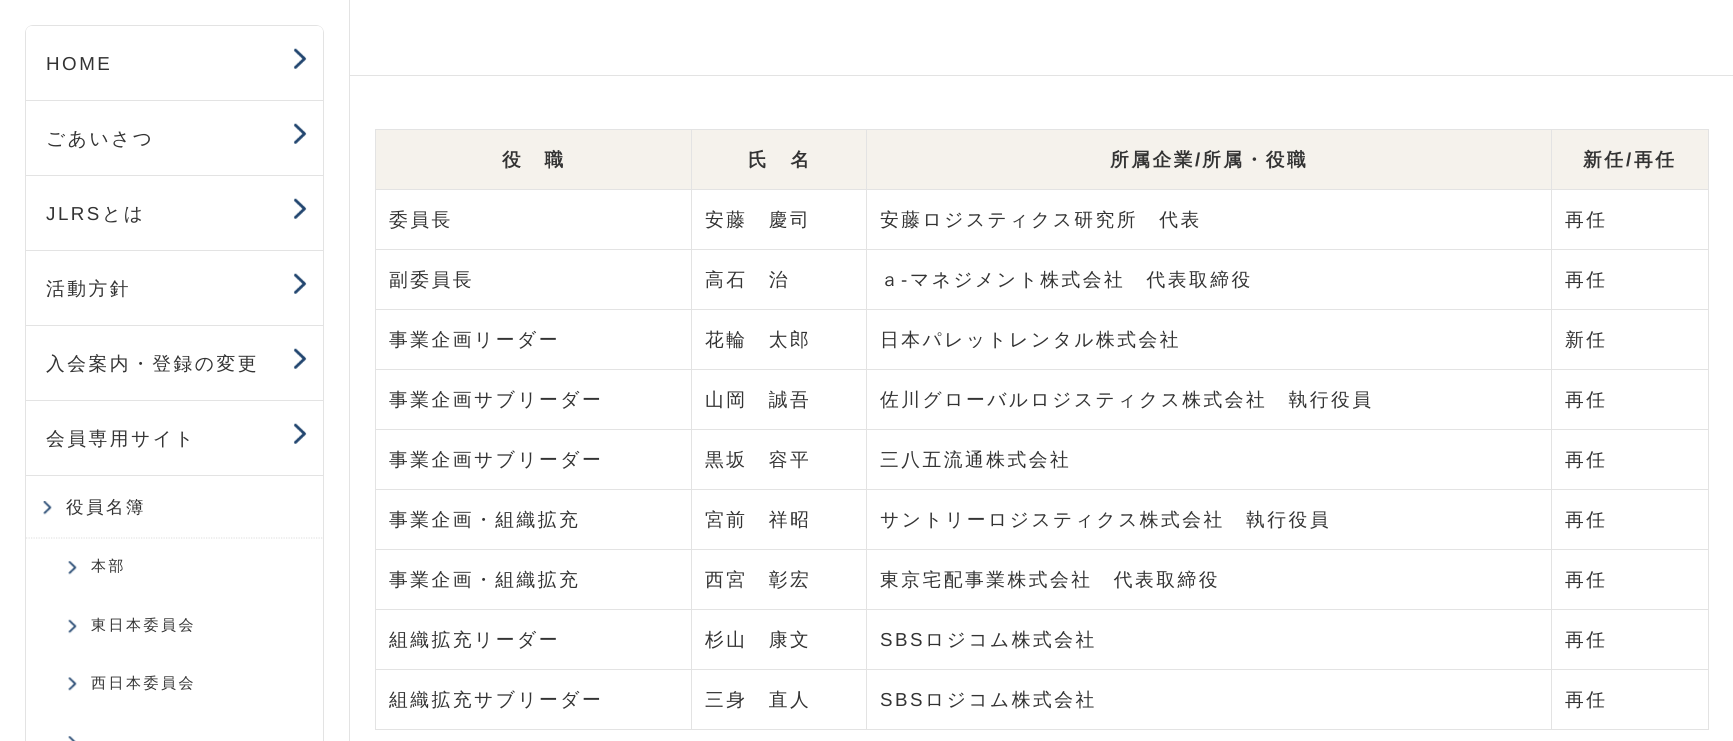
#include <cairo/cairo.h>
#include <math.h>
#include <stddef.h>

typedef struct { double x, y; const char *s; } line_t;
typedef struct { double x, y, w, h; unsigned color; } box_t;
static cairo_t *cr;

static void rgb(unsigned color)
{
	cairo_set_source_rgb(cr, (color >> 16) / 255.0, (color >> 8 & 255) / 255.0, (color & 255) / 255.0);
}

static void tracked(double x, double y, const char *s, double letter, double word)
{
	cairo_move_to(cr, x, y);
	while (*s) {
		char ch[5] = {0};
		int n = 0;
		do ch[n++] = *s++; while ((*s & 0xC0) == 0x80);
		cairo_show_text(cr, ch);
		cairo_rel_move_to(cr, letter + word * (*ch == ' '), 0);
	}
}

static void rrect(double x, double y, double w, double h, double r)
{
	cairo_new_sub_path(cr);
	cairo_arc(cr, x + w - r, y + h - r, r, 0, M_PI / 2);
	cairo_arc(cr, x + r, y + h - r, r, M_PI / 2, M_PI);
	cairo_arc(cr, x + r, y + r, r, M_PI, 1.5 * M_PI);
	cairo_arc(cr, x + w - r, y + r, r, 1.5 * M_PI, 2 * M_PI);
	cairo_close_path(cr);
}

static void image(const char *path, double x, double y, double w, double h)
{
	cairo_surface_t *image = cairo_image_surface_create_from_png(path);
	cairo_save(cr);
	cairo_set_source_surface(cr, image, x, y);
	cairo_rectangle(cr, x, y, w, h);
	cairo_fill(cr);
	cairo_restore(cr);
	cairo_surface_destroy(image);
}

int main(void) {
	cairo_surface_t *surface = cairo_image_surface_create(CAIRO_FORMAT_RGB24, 1733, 741);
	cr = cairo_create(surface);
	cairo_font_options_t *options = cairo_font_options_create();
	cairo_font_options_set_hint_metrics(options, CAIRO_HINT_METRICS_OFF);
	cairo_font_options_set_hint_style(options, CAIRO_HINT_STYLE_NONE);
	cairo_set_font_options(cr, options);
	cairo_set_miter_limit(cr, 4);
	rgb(0xffffff);
	cairo_paint(cr);
	rgb(0xe3e3e3);
	cairo_rectangle(cr, 349, 0, 1, 741);
	cairo_fill(cr);
	rrect(25.5, 25.5, 298, 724, 7.5);
	cairo_set_line_width(cr, 1);
	cairo_stroke(cr);
	rgb(0xffffff);
	cairo_new_path(cr);
	cairo_move_to(cr, 32, 26);
	cairo_line_to(cr, 317, 26);
	cairo_curve_to(cr, 320.5, 26, 323, 28.5, 323, 32);
	cairo_line_to(cr, 323, 101);
	cairo_line_to(cr, 26, 101);
	cairo_line_to(cr, 26, 32);
	cairo_curve_to(cr, 26, 28.5, 28.5, 26, 32, 26);
	cairo_close_path(cr);
	cairo_fill(cr);
	rgb(0xe3e3e3);
	cairo_rectangle(cr, 26, 100, 297, 1);
	cairo_fill(cr);
	image("img/1.png", 293, 48, 14, 21);
	cairo_rectangle(cr, 26, 175, 297, 1);
	cairo_fill(cr);
	image("img/2.png", 293, 123, 14, 21);
	cairo_rectangle(cr, 26, 250, 297, 1);
	cairo_fill(cr);
	image("img/2.png", 293, 198, 14, 21);
	cairo_rectangle(cr, 26, 325, 297, 1);
	cairo_fill(cr);
	image("img/2.png", 293, 273, 14, 21);
	cairo_rectangle(cr, 26, 400, 297, 1);
	cairo_fill(cr);
	image("img/2.png", 293, 348, 14, 21);
	cairo_rectangle(cr, 26, 475, 297, 1);
	cairo_fill(cr);
	image("img/3.png", 293, 423, 14, 21);
	cairo_new_path(cr);
	cairo_move_to(cr, 26, 538);
	cairo_line_to(cr, 322.5, 538);
	cairo_set_line_width(cr, 1.2);
	cairo_set_dash(cr, (double[]){1.25, 1.25}, 2, 0);
	cairo_stroke(cr);
	image("img/4.png", 43, 501, 9, 14);
	image("img/5.png", 68, 561, 9, 14);
	image("img/6.png", 68, 619, 9, 15);
	image("img/7.png", 68, 677, 9, 14);
	image("img/8.png", 68, 736, 8, 5);
	{
		static const box_t items[] = {
			{350, 75, 1383, 1, 0xe3e3e3},
			{376, 130, 490, 59, 0xf5f2ec},
			{1551, 129, 158, 1, 0xe3e3e3},
			{1551, 189, 158, 1, 0xe3e3e3},
			{1551, 249, 158, 1, 0xe3e3e3},
			{1551, 309, 158, 1, 0xe3e3e3},
			{1551, 369, 158, 1, 0xe3e3e3},
			{1551, 429, 158, 1, 0xe3e3e3},
			{1551, 489, 158, 1, 0xe3e3e3},
			{1551, 549, 158, 1, 0xe3e3e3},
			{1551, 609, 158, 1, 0xe3e3e3},
			{1551, 669, 158, 1, 0xe3e3e3},
			{1708, 669, 1, 61, 0xe3e3e3},
			{1551, 729, 158, 1, 0xe3e3e3},
			{1551, 669, 1, 61, 0xe3e3e3},
			{866, 669, 687, 1, 0xe3e3e3},
			{1551, 609, 1, 61, 0xe3e3e3},
			{866, 609, 687, 1, 0xe3e3e3},
			{1551, 549, 1, 61, 0xe3e3e3},
			{866, 549, 687, 1, 0xe3e3e3},
			{1551, 489, 1, 61, 0xe3e3e3},
			{866, 489, 687, 1, 0xe3e3e3},
			{1551, 429, 1, 61, 0xe3e3e3},
			{866, 429, 687, 1, 0xe3e3e3},
			{1551, 369, 1, 61, 0xe3e3e3},
			{866, 369, 687, 1, 0xe3e3e3},
			{1551, 309, 1, 61, 0xe3e3e3},
			{866, 309, 687, 1, 0xe3e3e3},
			{1551, 249, 1, 61, 0xe3e3e3},
			{866, 249, 687, 1, 0xe3e3e3},
			{1551, 189, 1, 61, 0xe3e3e3},
			{866, 189, 687, 1, 0xe3e3e3},
			{1551, 129, 1, 61, 0xe3e3e3},
			{866, 129, 687, 1, 0xe3e3e3},
			{866, 729, 687, 1, 0xe3e3e3},
			{866, 669, 1, 61, 0xe3e3e3},
			{691, 669, 177, 1, 0xe3e3e3},
			{866, 609, 1, 61, 0xe3e3e3},
			{691, 609, 177, 1, 0xe3e3e3},
			{866, 549, 1, 61, 0xe3e3e3},
			{691, 549, 177, 1, 0xe3e3e3},
			{866, 489, 1, 61, 0xe3e3e3},
			{691, 489, 177, 1, 0xe3e3e3},
			{866, 429, 1, 61, 0xe3e3e3},
			{691, 429, 177, 1, 0xe3e3e3},
			{866, 369, 1, 61, 0xe3e3e3},
			{691, 369, 177, 1, 0xe3e3e3},
			{866, 309, 1, 61, 0xe3e3e3},
			{691, 309, 177, 1, 0xe3e3e3},
			{866, 249, 1, 61, 0xe3e3e3},
			{691, 249, 177, 1, 0xe3e3e3},
			{866, 189, 1, 61, 0xe3e3e3},
			{691, 189, 177, 1, 0xe3e3e3},
			{866, 129, 1, 61, 0xe3e3e3},
			{691, 129, 177, 1, 0xe3e3e3},
			{691, 729, 177, 1, 0xe3e3e3},
			{691, 669, 1, 61, 0xe3e3e3},
			{375, 669, 318, 1, 0xe3e3e3},
			{691, 609, 1, 61, 0xe3e3e3},
			{375, 609, 318, 1, 0xe3e3e3},
			{691, 549, 1, 61, 0xe3e3e3},
			{375, 549, 318, 1, 0xe3e3e3},
			{691, 489, 1, 61, 0xe3e3e3},
			{375, 489, 318, 1, 0xe3e3e3},
			{691, 429, 1, 61, 0xe3e3e3},
			{375, 429, 318, 1, 0xe3e3e3},
			{691, 369, 1, 61, 0xe3e3e3},
			{375, 369, 318, 1, 0xe3e3e3},
			{691, 309, 1, 61, 0xe3e3e3},
			{375, 309, 318, 1, 0xe3e3e3},
			{691, 249, 1, 61, 0xe3e3e3},
			{375, 249, 318, 1, 0xe3e3e3},
			{691, 189, 1, 61, 0xe3e3e3},
			{375, 189, 318, 1, 0xe3e3e3},
			{691, 129, 1, 61, 0xe3e3e3},
			{375, 129, 318, 1, 0xe3e3e3},
			{375, 729, 318, 1, 0xe3e3e3},
			{375, 669, 1, 61, 0xe3e3e3},
			{375, 609, 1, 61, 0xe3e3e3},
			{375, 549, 1, 61, 0xe3e3e3},
			{375, 489, 1, 61, 0xe3e3e3},
			{375, 429, 1, 61, 0xe3e3e3},
			{375, 369, 1, 61, 0xe3e3e3},
			{375, 309, 1, 61, 0xe3e3e3},
			{375, 249, 1, 61, 0xe3e3e3},
			{375, 189, 1, 61, 0xe3e3e3},
			{375, 129, 1, 61, 0xe3e3e3},
			{867, 130, 684, 59, 0xf5f2ec},
			{1552, 130, 156, 59, 0xf5f2ec},
			{1708, 609, 1, 61, 0xe3e3e3},
			{1708, 549, 1, 61, 0xe3e3e3},
			{1708, 489, 1, 61, 0xe3e3e3},
			{1708, 429, 1, 61, 0xe3e3e3},
			{1708, 369, 1, 61, 0xe3e3e3},
			{1708, 309, 1, 61, 0xe3e3e3},
			{1708, 249, 1, 61, 0xe3e3e3},
			{1708, 189, 1, 61, 0xe3e3e3},
			{1708, 129, 1, 61, 0xe3e3e3},
		};
		for (size_t i = 0; i < sizeof items / sizeof *items; i++) {
			rgb(items[i].color);
			cairo_rectangle(cr, items[i].x, items[i].y, items[i].w, items[i].h);
			cairo_fill(cr);
		}
	}
	cairo_select_font_face(cr, "Liberation Sans", CAIRO_FONT_SLANT_NORMAL, CAIRO_FONT_WEIGHT_NORMAL);
	cairo_set_font_size(cr, 18.75);
	rgb(0x333333);
	tracked(46, 70, "HOME", 2.5, 0);
	cairo_select_font_face(cr, "WenQuanYi Zen Hei Medium", CAIRO_FONT_SLANT_NORMAL, CAIRO_FONT_WEIGHT_NORMAL);
	tracked(46, 145, "ごあいさつ", 2.5, 0);
	cairo_select_font_face(cr, "Liberation Sans", CAIRO_FONT_SLANT_NORMAL, CAIRO_FONT_WEIGHT_NORMAL);
	tracked(46, 220, "JLRS", 2.5, 0);
	cairo_select_font_face(cr, "WenQuanYi Zen Hei Medium", CAIRO_FONT_SLANT_NORMAL, CAIRO_FONT_WEIGHT_NORMAL);
	{
		static const line_t items[] = {
			{102, 220, "とは"},
			{46, 295, "活動方針"},
			{46, 370, "入会案内・登録の変更"},
			{46, 445, "会員専用サイト"},
		};
		for (size_t i = 0; i < sizeof items / sizeof *items; i++) {
			tracked(items[i].x, items[i].y, items[i].s, 2.5, 0);
		}
	}
	cairo_set_font_size(cr, 17.5);
	tracked(66, 513, "役員名簿", 2.5, 0);
	cairo_set_font_size(cr, 15);
	{
		static const line_t items[] = {
			{91, 571, "本部"},
			{91, 630, "東日本委員会"},
			{91, 688, "西日本委員会"},
		};
		for (size_t i = 0; i < sizeof items / sizeof *items; i++) {
			tracked(items[i].x, items[i].y, items[i].s, 2.5, 0);
		}
	}
	cairo_select_font_face(cr, "WenQuanYi Zen Hei", CAIRO_FONT_SLANT_NORMAL, CAIRO_FONT_WEIGHT_BOLD);
	cairo_set_font_size(cr, 18.75);
	{
		static const line_t items[] = {
			{502, 166, "役　職"},
			{748, 166, "氏　名"},
			{1110, 166, "所属企業"},
		};
		for (size_t i = 0; i < sizeof items / sizeof *items; i++) {
			tracked(items[i].x, items[i].y, items[i].s, 2.5, 0);
		}
	}
	cairo_select_font_face(cr, "Liberation Sans", CAIRO_FONT_SLANT_NORMAL, CAIRO_FONT_WEIGHT_BOLD);
	tracked(1195, 166, "/", 2.5, 0);
	cairo_select_font_face(cr, "WenQuanYi Zen Hei", CAIRO_FONT_SLANT_NORMAL, CAIRO_FONT_WEIGHT_BOLD);
	tracked(1202, 166, "所属・役職", 2.5, 0);
	tracked(1583, 166, "新任", 2.5, 0);
	cairo_select_font_face(cr, "Liberation Sans", CAIRO_FONT_SLANT_NORMAL, CAIRO_FONT_WEIGHT_BOLD);
	tracked(1626, 166, "/", 2.5, 0);
	cairo_select_font_face(cr, "WenQuanYi Zen Hei", CAIRO_FONT_SLANT_NORMAL, CAIRO_FONT_WEIGHT_BOLD);
	tracked(1634, 166, "再任", 2.5, 0);
	cairo_select_font_face(cr, "WenQuanYi Zen Hei Medium", CAIRO_FONT_SLANT_NORMAL, CAIRO_FONT_WEIGHT_NORMAL);
	{
		static const line_t items[] = {
			{389, 226, "委員長"},
			{705, 226, "安藤　慶司"},
			{880, 226, "安藤ロジスティクス研究所　代表"},
			{1565, 226, "再任"},
			{389, 286, "副委員長"},
			{705, 286, "高石　治"},
			{880, 286, "ａ"},
		};
		for (size_t i = 0; i < sizeof items / sizeof *items; i++) {
			tracked(items[i].x, items[i].y, items[i].s, 2.5, 0);
		}
	}
	cairo_select_font_face(cr, "Liberation Sans", CAIRO_FONT_SLANT_NORMAL, CAIRO_FONT_WEIGHT_NORMAL);
	tracked(901, 286, "‐", 2.5, 0);
	cairo_select_font_face(cr, "WenQuanYi Zen Hei Medium", CAIRO_FONT_SLANT_NORMAL, CAIRO_FONT_WEIGHT_NORMAL);
	{
		static const line_t items[] = {
			{910, 286, "マネジメント株式会社　代表取締役"},
			{1565, 286, "再任"},
			{389, 346, "事業企画リーダー"},
			{705, 346, "花輪　太郎"},
			{880, 346, "日本パレットレンタル株式会社"},
			{1565, 346, "新任"},
			{389, 406, "事業企画サブリーダー"},
			{705, 406, "山岡　誠吾"},
			{880, 406, "佐川グローバルロジスティクス株式会社　執行役員"},
			{1565, 406, "再任"},
			{389, 466, "事業企画サブリーダー"},
			{705, 466, "黒坂　容平"},
			{880, 466, "三八五流通株式会社"},
			{1565, 466, "再任"},
			{389, 526, "事業企画・組織拡充"},
			{705, 526, "宮前　祥昭"},
			{880, 526, "サントリーロジスティクス株式会社　執行役員"},
			{1565, 526, "再任"},
			{389, 586, "事業企画・組織拡充"},
			{705, 586, "西宮　彰宏"},
			{880, 586, "東京宅配事業株式会社　代表取締役"},
			{1565, 586, "再任"},
			{389, 646, "組織拡充リーダー"},
			{705, 646, "杉山　康文"},
		};
		for (size_t i = 0; i < sizeof items / sizeof *items; i++) {
			tracked(items[i].x, items[i].y, items[i].s, 2.5, 0);
		}
	}
	cairo_select_font_face(cr, "Liberation Sans", CAIRO_FONT_SLANT_NORMAL, CAIRO_FONT_WEIGHT_NORMAL);
	tracked(880, 646, "SBS", 2.5, 0);
	cairo_select_font_face(cr, "WenQuanYi Zen Hei Medium", CAIRO_FONT_SLANT_NORMAL, CAIRO_FONT_WEIGHT_NORMAL);
	{
		static const line_t items[] = {
			{925, 646, "ロジコム株式会社"},
			{1565, 646, "再任"},
			{389, 706, "組織拡充サブリーダー"},
			{705, 706, "三身　直人"},
		};
		for (size_t i = 0; i < sizeof items / sizeof *items; i++) {
			tracked(items[i].x, items[i].y, items[i].s, 2.5, 0);
		}
	}
	cairo_select_font_face(cr, "Liberation Sans", CAIRO_FONT_SLANT_NORMAL, CAIRO_FONT_WEIGHT_NORMAL);
	tracked(880, 706, "SBS", 2.5, 0);
	cairo_select_font_face(cr, "WenQuanYi Zen Hei Medium", CAIRO_FONT_SLANT_NORMAL, CAIRO_FONT_WEIGHT_NORMAL);
	tracked(925, 706, "ロジコム株式会社", 2.5, 0);
	tracked(1565, 706, "再任", 2.5, 0);
	cairo_surface_write_to_png(surface, "page.png");
	cairo_font_options_destroy(options);
	cairo_destroy(cr);
	cairo_surface_destroy(surface);
	return 0;
}
